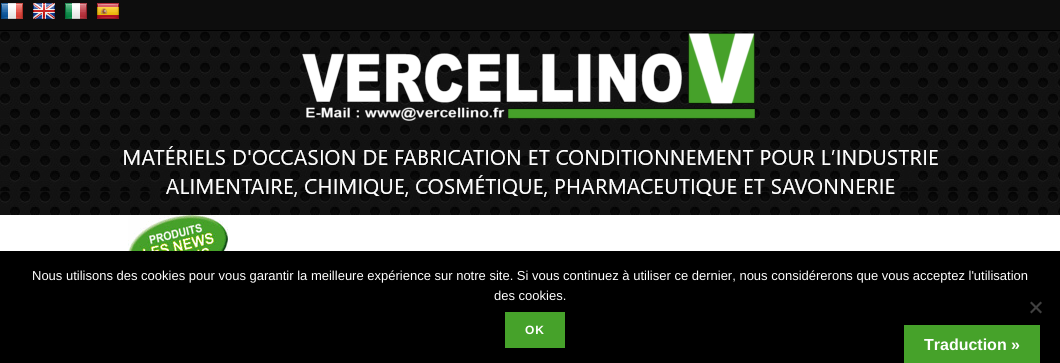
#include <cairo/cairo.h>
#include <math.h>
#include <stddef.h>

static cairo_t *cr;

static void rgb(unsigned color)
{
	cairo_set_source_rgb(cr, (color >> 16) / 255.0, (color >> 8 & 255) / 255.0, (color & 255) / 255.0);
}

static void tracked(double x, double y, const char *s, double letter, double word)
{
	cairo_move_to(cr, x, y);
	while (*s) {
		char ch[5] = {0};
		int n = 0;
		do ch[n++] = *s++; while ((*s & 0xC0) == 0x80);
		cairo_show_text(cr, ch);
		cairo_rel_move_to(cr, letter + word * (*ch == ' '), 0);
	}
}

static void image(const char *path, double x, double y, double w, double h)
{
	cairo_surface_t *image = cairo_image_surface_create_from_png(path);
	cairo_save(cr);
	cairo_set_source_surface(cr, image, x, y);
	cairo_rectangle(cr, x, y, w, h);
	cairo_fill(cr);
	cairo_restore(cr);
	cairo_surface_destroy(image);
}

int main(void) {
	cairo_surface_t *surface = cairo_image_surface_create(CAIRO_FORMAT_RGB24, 1060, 363);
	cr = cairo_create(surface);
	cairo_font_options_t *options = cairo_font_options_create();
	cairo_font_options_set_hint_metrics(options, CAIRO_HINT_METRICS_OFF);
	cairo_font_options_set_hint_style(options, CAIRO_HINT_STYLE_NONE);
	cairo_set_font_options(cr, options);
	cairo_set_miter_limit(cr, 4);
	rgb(0xffffff);
	cairo_paint(cr);
	rgb(0x0d0d0d);
	cairo_rectangle(cr, 0, 0, 1060, 30);
	cairo_fill(cr);
	rgb(0x000000);
	cairo_rectangle(cr, 0, 30, 1060, 1);
	cairo_fill(cr);
	image("img/1.png", 1, 3, 22, 16);
	image("img/2.png", 33, 3, 22, 16);
	image("img/3.png", 65, 3, 22, 16);
	image("img/4.png", 97, 3, 22, 16);
	image("img/5.png", 0, 31, 1060, 184);
	image("img/6.png", 124, 33, 814, 164);
	image("img/7.png", 128, 215, 100, 36);
	cairo_rectangle(cr, 0, 251, 1060, 112);
	cairo_fill(cr);
	rgb(0x404040);
	cairo_new_path(cr);
	cairo_move_to(cr, 1040.5, 301.5);
	cairo_line_to(cr, 1042, 303);
	cairo_line_to(cr, 1031.5, 313.5);
	cairo_line_to(cr, 1030, 312);
	cairo_close_path(cr);
	cairo_fill(cr);
	cairo_new_path(cr);
	cairo_move_to(cr, 1030, 303);
	cairo_line_to(cr, 1031.5, 301.5);
	cairo_line_to(cr, 1042, 312);
	cairo_line_to(cr, 1040.5, 313.5);
	cairo_close_path(cr);
	cairo_fill(cr);
	rgb(0x46a22a);
	cairo_rectangle(cr, 505, 312, 60, 36);
	cairo_fill(cr);
	cairo_rectangle(cr, 904, 325, 136, 38);
	cairo_fill(cr);
	cairo_select_font_face(cr, "Liberation Sans", CAIRO_FONT_SLANT_NORMAL, CAIRO_FONT_WEIGHT_NORMAL);
	cairo_set_font_size(cr, 13);
	rgb(0xffffff);
	cairo_move_to(cr, 32, 280);
	cairo_show_text(cr, "Nous utilisons des cookies pour vous garantir la meilleure expérience sur notre site. Si vous continuez à utiliser ce dernier, nous considérerons que vous acceptez l'utilisation");
	cairo_move_to(cr, 494, 300);
	cairo_show_text(cr, "des cookies.");
	cairo_select_font_face(cr, "Liberation Sans", CAIRO_FONT_SLANT_NORMAL, CAIRO_FONT_WEIGHT_BOLD);
	cairo_set_font_size(cr, 12);
	tracked(525, 334, "OK", 1, 0);
	cairo_set_font_size(cr, 16);
	cairo_move_to(cr, 924, 350);
	cairo_show_text(cr, "Traduction »");
	cairo_surface_write_to_png(surface, "page.png");
	cairo_font_options_destroy(options);
	cairo_destroy(cr);
	cairo_surface_destroy(surface);
	return 0;
}
